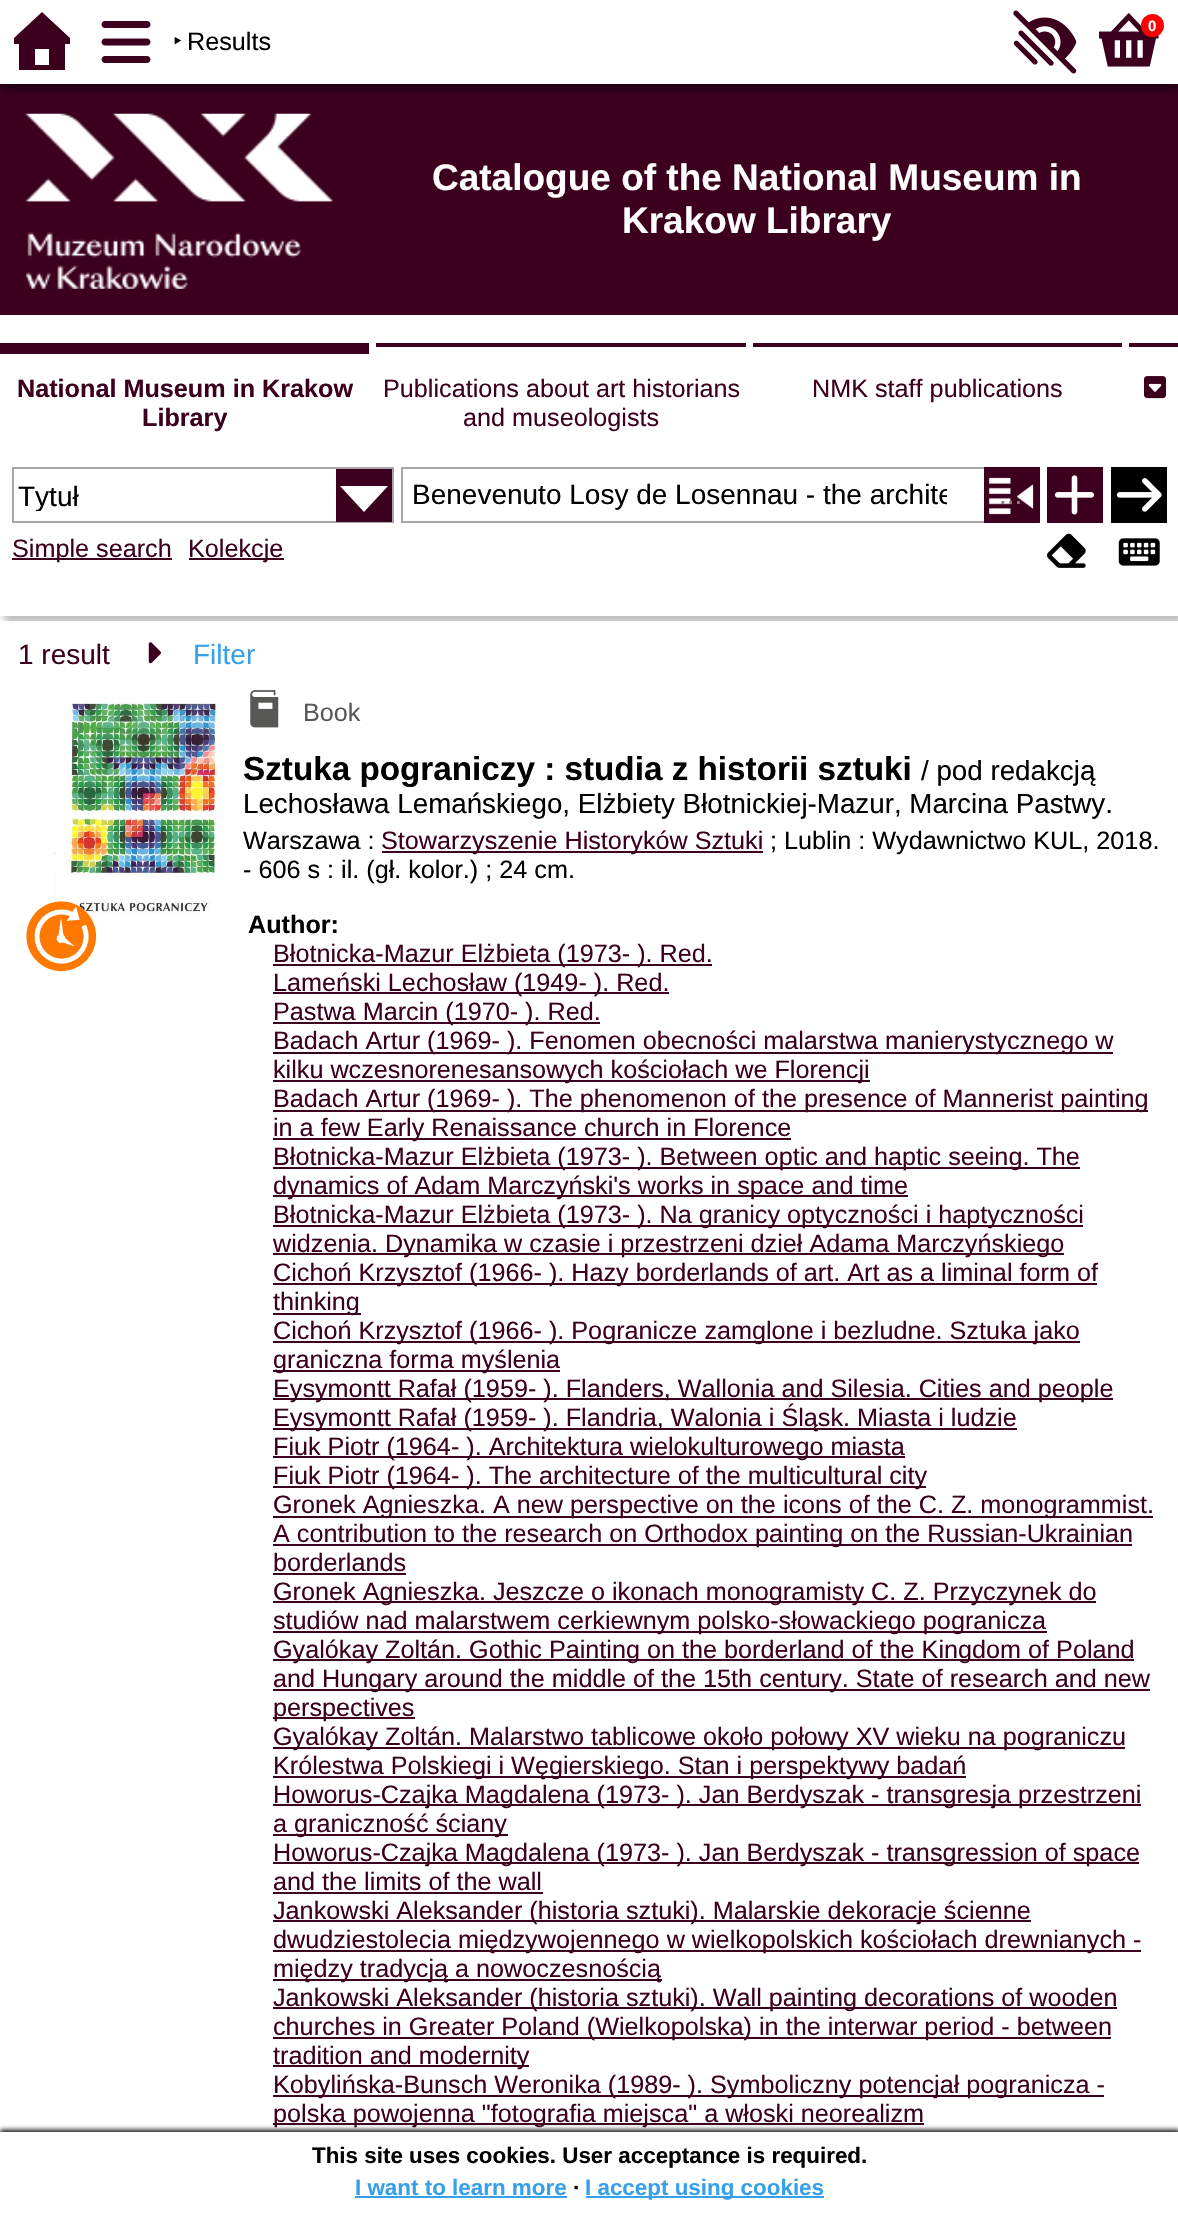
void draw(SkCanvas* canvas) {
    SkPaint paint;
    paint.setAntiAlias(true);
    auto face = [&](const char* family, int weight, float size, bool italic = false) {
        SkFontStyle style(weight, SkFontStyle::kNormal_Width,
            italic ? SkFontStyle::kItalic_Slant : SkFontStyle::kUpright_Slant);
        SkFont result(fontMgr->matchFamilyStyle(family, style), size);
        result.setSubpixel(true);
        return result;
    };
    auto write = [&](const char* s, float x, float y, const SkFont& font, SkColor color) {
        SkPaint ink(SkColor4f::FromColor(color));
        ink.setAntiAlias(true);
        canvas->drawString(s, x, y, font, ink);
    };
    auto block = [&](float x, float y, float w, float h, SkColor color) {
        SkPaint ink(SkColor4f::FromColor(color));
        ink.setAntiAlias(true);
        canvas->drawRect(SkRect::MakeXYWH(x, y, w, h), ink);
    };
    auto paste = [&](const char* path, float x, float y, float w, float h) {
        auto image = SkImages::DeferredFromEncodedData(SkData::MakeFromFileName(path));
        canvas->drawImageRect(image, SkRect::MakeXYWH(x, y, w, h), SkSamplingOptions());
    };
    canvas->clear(SK_ColorWHITE);
    block(0, 84, 1178, 231, SkColorSetRGB(60, 0, 30));
    canvas->save();
    canvas->clipRect(SkRect::MakeXYWH(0, 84, 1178, 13));
    paint.setColor(SkColorSetARGB(166, 0, 0, 0));
    paint.setMaskFilter(SkMaskFilter::MakeBlur(kNormal_SkBlurStyle, 5));
    canvas->drawRect(SkRect::MakeXYWH(0, 4, 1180, 84), paint);
    paint.setMaskFilter(nullptr);
    canvas->restore();
    paste("pic1.png", 1013, 10, 64, 64);
    paste("pic2.png", 1099, 12, 60, 55);
    paint.setColor(SkColorSetRGB(255, 0, 0));
    canvas->drawCircle(1152.5f, 25.5f, 11.5f, paint);
    auto kFont1 = face("Liberation Sans", 700, 15);
    write("0", 1148, 31, kFont1, SK_ColorWHITE);
    paint.setColor(SkColorSetRGB(60, 0, 30));
    canvas->drawPath(SkPathBuilder().moveTo(70, 44).lineTo(65, 44).lineTo(65, 70).lineTo(19, 70).lineTo(19, 44).lineTo(14, 44).lineTo(14, 38).lineTo(42, 12).lineTo(70, 38).close().moveTo(49, 65).lineTo(49, 49).lineTo(35, 49).lineTo(35, 65).close().detach(), paint);
    paste("pic3.png", 101, 21, 50, 42);
    auto kFont2 = face("Noto Sans", 400, 25.2f);
    write("‣", 173, 50, kFont2, SK_ColorBLACK);
    auto kFont3 = face("Liberation Sans", 400, 25.2f);
    write("Results", 187, 50, kFont3, SK_ColorBLACK);
    paste("pic4.png", 26, 113, 307, 176);
    auto kFont4 = face("Liberation Sans", 700, 37);
    write("Catalogue of the National Museum in", 432, 190, kFont4, SK_ColorWHITE);
    write("Krakow Library", 622, 233, kFont4, SK_ColorWHITE);
    canvas->save();
    canvas->clipRect(SkRect::MakeXYWH(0, 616, 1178, 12));
    paint.setColor(SkColorSetARGB(64, 0, 0, 0));
    paint.setMaskFilter(SkMaskFilter::MakeBlur(kNormal_SkBlurStyle, 3.5f));
    canvas->drawRect(SkRect::MakeXYWH(4, 350, 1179, 273), paint);
    paint.setMaskFilter(nullptr);
    canvas->restore();
    block(1129, 343, 49, 4, SkColorSetRGB(60, 0, 30));
    paste("pic5.png", 1144, 376, 22, 23);
    block(0, 343, 369, 11, SkColorSetRGB(60, 0, 30));
    auto kFont5 = face("Liberation Sans", 700, 25.2f);
    write("National Museum in Krakow", 17, 397, kFont5, SkColorSetRGB(60, 0, 30));
    write("Library", 142, 426, kFont5, SkColorSetRGB(60, 0, 30));
    block(376, 343, 370, 4, SkColorSetRGB(60, 0, 30));
    write("Publications about art historians", 383, 397, kFont3, SkColorSetRGB(60, 0, 30));
    write("and museologists", 463, 426, kFont3, SkColorSetRGB(60, 0, 30));
    block(753, 343, 369, 4, SkColorSetRGB(60, 0, 30));
    write("NMK staff publications", 812, 397, kFont3, SkColorSetRGB(60, 0, 30));
    paint.setStyle(SkPaint::kStroke_Style);
    paint.setStrokeWidth(2);
    paint.setColor(SkColorSetRGB(167, 167, 167));
    canvas->drawRect(SkRect::MakeXYWH(13, 468, 380, 54), paint);
    canvas->save();
    canvas->clipRect(SkRect::MakeXYWH(18, 483, 374, 28));
    auto kFont6 = face("Liberation Sans", 400, 28);
    write("Tytuł", 18, 506, kFont6, SK_ColorBLACK);
    canvas->restore();
    block(336, 469, 56, 53, SkColorSetRGB(60, 0, 30));
    paint.setStyle(SkPaint::kFill_Style);
    paint.setColor(SK_ColorWHITE);
    canvas->drawPath(SkPathBuilder().moveTo(388, 486).lineTo(364, 512).lineTo(340, 486).close().detach(), paint);
    paint.setStyle(SkPaint::kStroke_Style);
    paint.setColor(SkColorSetRGB(167, 167, 167));
    canvas->drawRect(SkRect::MakeXYWH(402, 468, 637, 54), paint);
    canvas->save();
    canvas->clipRect(SkRect::MakeXYWH(411, 480, 536, 31));
    write("Benevenuto Losy de Losennau - the archite", 412, 504, kFont6, SK_ColorBLACK);
    canvas->restore();
    block(984, 467, 56, 56, SkColorSetRGB(60, 0, 30));
    paste("pic6.png", 988, 477, 52, 46);
    write("...", 999, 504, kFont6, SkColorSetRGB(150, 118, 134));
    block(1047, 467, 56, 56, SkColorSetRGB(60, 0, 30));
    paste("pic7.png", 1054, 475, 41, 40);
    block(1111, 467, 56, 56, SK_ColorBLACK);
    paste("pic8.png", 1116, 478, 46, 34);
    block(12, 558, 160, 2, SkColorSetRGB(60, 0, 30));
    write("Simple search", 12, 557, kFont3, SkColorSetRGB(60, 0, 30));
    block(189, 558, 95, 2, SkColorSetRGB(60, 0, 30));
    write("Kolekcje", 188, 557, kFont3, SkColorSetRGB(60, 0, 30));
    paste("pic9.png", 1047, 533, 39, 35);
    paste("pic10.png", 1118, 538, 42, 28);
    block(0, 621, 1178, 8, SkColorSetARGB(242, 255, 255, 255));
    write("1 result", 18, 664, kFont6, SkColorSetRGB(60, 0, 30));
    paste("pic11.png", 148, 642, 13, 22);
    write("Filter", 193, 664, kFont6, SkColorSetRGB(54, 160, 236));
    paste("pic12.png", 54, 697, 170, 250);
    paste("pic13.png", 26, 901, 71, 71);
    paste("pic14.png", 250, 690, 29, 38);
    write("Book", 303, 721, kFont3, SkColorSetRGB(87, 87, 86));
    auto kFont7 = face("Liberation Sans", 700, 33.25f);
    write("Sztuka pograniczy : studia z historii sztuki", 243, 780, kFont7, SK_ColorBLACK);
    auto kFont8 = face("Liberation Sans", 400, 27.75f);
    write("/ pod redakcją", 921, 780, kFont8, SK_ColorBLACK);
    write("Lechosława Lemańskiego, Elżbiety Błotnickiej-Mazur, Marcina Pastwy.", 243, 813, kFont8, SK_ColorBLACK);
    write("Warszawa :", 243, 849, kFont3, SK_ColorBLACK);
    block(382, 851, 381, 2, SkColorSetRGB(60, 0, 30));
    write("Stowarzyszenie Historyków Sztuki", 381, 849, kFont3, SkColorSetRGB(60, 0, 30));
    write("; Lublin : Wydawnictwo KUL, 2018.", 770, 849, kFont3, SK_ColorBLACK);
    write("- 606 s : il. (gł. kolor.) ; 24 cm.", 243, 878, kFont3, SK_ColorBLACK);
    write("Author:", 248, 933, kFont5, SK_ColorBLACK);
    block(273, 964, 439, 2, SkColorSetRGB(60, 0, 30));
    write("Błotnicka-Mazur Elżbieta (1973- ). Red.", 273, 962, kFont3, SkColorSetRGB(60, 0, 30));
    block(273, 992, 396, 2, SkColorSetRGB(60, 0, 30));
    write("Lameński Lechosław (1949- ). Red.", 273, 991, kFont3, SkColorSetRGB(60, 0, 30));
    block(273, 1022, 327, 2, SkColorSetRGB(60, 0, 30));
    write("Pastwa Marcin (1970- ). Red.", 273, 1020, kFont3, SkColorSetRGB(60, 0, 30));
    block(273, 1052, 840, 2, SkColorSetRGB(60, 0, 30));
    write("Badach Artur (1969- ). Fenomen obecności malarstwa manierystycznego w", 273, 1049, kFont3, SkColorSetRGB(60, 0, 30));
    block(273, 1080, 597, 2, SkColorSetRGB(60, 0, 30));
    write("kilku wczesnorenesansowych kościołach we Florencji", 273, 1078, kFont3, SkColorSetRGB(60, 0, 30));
    block(273, 1110, 875, 2, SkColorSetRGB(60, 0, 30));
    write("Badach Artur (1969- ). The phenomenon of the presence of Mannerist painting", 273, 1107, kFont3, SkColorSetRGB(60, 0, 30));
    block(273, 1138, 518, 2, SkColorSetRGB(60, 0, 30));
    write("in a few Early Renaissance church in Florence", 273, 1136, kFont3, SkColorSetRGB(60, 0, 30));
    block(273, 1167, 807, 2, SkColorSetRGB(60, 0, 30));
    write("Błotnicka-Mazur Elżbieta (1973- ). Between optic and haptic seeing. The", 273, 1165, kFont3, SkColorSetRGB(60, 0, 30));
    block(273, 1195, 635, 2, SkColorSetRGB(60, 0, 30));
    write("dynamics of Adam Marczyński's works in space and time", 273, 1194, kFont3, SkColorSetRGB(60, 0, 30));
    block(273, 1225, 810, 2, SkColorSetRGB(60, 0, 30));
    write("Błotnicka-Mazur Elżbieta (1973- ). Na granicy optyczności i haptyczności", 273, 1223, kFont3, SkColorSetRGB(60, 0, 30));
    block(273, 1253, 791, 2, SkColorSetRGB(60, 0, 30));
    write("widzenia. Dynamika w czasie i przestrzeni dzieł Adama Marczyńskiego", 273, 1252, kFont3, SkColorSetRGB(60, 0, 30));
    block(273, 1283, 824, 2, SkColorSetRGB(60, 0, 30));
    write("Cichoń Krzysztof (1966- ). Hazy borderlands of art. Art as a liminal form of", 273, 1281, kFont3, SkColorSetRGB(60, 0, 30));
    block(273, 1313, 88, 2, SkColorSetRGB(60, 0, 30));
    write("thinking", 273, 1310, kFont3, SkColorSetRGB(60, 0, 30));
    block(273, 1341, 807, 2, SkColorSetRGB(60, 0, 30));
    write("Cichoń Krzysztof (1966- ). Pogranicze zamglone i bezludne. Sztuka jako", 273, 1339, kFont3, SkColorSetRGB(60, 0, 30));
    block(273, 1370, 287, 2, SkColorSetRGB(60, 0, 30));
    write("graniczna forma myślenia", 273, 1368, kFont3, SkColorSetRGB(60, 0, 30));
    block(273, 1398, 840, 2, SkColorSetRGB(60, 0, 30));
    write("Eysymontt Rafał (1959- ). Flanders, Wallonia and Silesia. Cities and people", 273, 1397, kFont3, SkColorSetRGB(60, 0, 30));
    block(273, 1428, 744, 2, SkColorSetRGB(60, 0, 30));
    write("Eysymontt Rafał (1959- ). Flandria, Walonia i Śląsk. Miasta i ludzie", 273, 1426, kFont3, SkColorSetRGB(60, 0, 30));
    block(273, 1456, 632, 2, SkColorSetRGB(60, 0, 30));
    write("Fiuk Piotr (1964- ). Architektura wielokulturowego miasta", 273, 1455, kFont3, SkColorSetRGB(60, 0, 30));
    block(273, 1486, 653, 2, SkColorSetRGB(60, 0, 30));
    write("Fiuk Piotr (1964- ). The architecture of the multicultural city", 273, 1484, kFont3, SkColorSetRGB(60, 0, 30));
    block(273, 1516, 880, 2, SkColorSetRGB(60, 0, 30));
    write("Gronek Agnieszka. A new perspective on the icons of the C. Z. monogrammist.", 273, 1513, kFont3, SkColorSetRGB(60, 0, 30));
    block(273, 1544, 859, 2, SkColorSetRGB(60, 0, 30));
    write("A contribution to the research on Orthodox painting on the Russian-Ukrainian", 273, 1542, kFont3, SkColorSetRGB(60, 0, 30));
    write("borderlands", 273, 1571, kFont3, SkColorSetRGB(60, 0, 30));
    block(273, 1573, 133, 2, SkColorSetRGB(60, 0, 30));
    block(273, 1601, 823, 2, SkColorSetRGB(60, 0, 30));
    write("Gronek Agnieszka. Jeszcze o ikonach monogramisty C. Z. Przyczynek do", 273, 1600, kFont3, SkColorSetRGB(60, 0, 30));
    block(273, 1631, 774, 2, SkColorSetRGB(60, 0, 30));
    write("studiów nad malarstwem cerkiewnym polsko-słowackiego pogranicza", 273, 1629, kFont3, SkColorSetRGB(60, 0, 30));
    block(273, 1659, 861, 2, SkColorSetRGB(60, 0, 30));
    write("Gyalókay Zoltán. Gothic Painting on the borderland of the Kingdom of Poland", 273, 1658, kFont3, SkColorSetRGB(60, 0, 30));
    block(273, 1689, 877, 2, SkColorSetRGB(60, 0, 30));
    write("and Hungary around the middle of the 15th century. State of research and new", 273, 1687, kFont3, SkColorSetRGB(60, 0, 30));
    block(273, 1717, 142, 2, SkColorSetRGB(60, 0, 30));
    write("perspectives", 273, 1716, kFont3, SkColorSetRGB(60, 0, 30));
    block(273, 1747, 852, 2, SkColorSetRGB(60, 0, 30));
    write("Gyalókay Zoltán. Malarstwo tablicowe około połowy XV wieku na pograniczu", 273, 1745, kFont3, SkColorSetRGB(60, 0, 30));
    block(273, 1776, 693, 2, SkColorSetRGB(60, 0, 30));
    write("Królestwa Polskiegi i Węgierskiego. Stan i perspektywy badań", 273, 1774, kFont3, SkColorSetRGB(60, 0, 30));
    block(273, 1804, 868, 2, SkColorSetRGB(60, 0, 30));
    write("Howorus-Czajka Magdalena (1973- ). Jan Berdyszak - transgresja przestrzeni", 273, 1803, kFont3, SkColorSetRGB(60, 0, 30));
    block(273, 1834, 235, 2, SkColorSetRGB(60, 0, 30));
    write("a graniczność ściany", 273, 1832, kFont3, SkColorSetRGB(60, 0, 30));
    block(273, 1862, 866, 2, SkColorSetRGB(60, 0, 30));
    write("Howorus-Czajka Magdalena (1973- ). Jan Berdyszak - transgression of space", 273, 1861, kFont3, SkColorSetRGB(60, 0, 30));
    write("and the limits of the wall", 273, 1890, kFont3, SkColorSetRGB(60, 0, 30));
    block(273, 1892, 270, 2, SkColorSetRGB(60, 0, 30));
    block(273, 1920, 758, 2, SkColorSetRGB(60, 0, 30));
    write("Jankowski Aleksander (historia sztuki). Malarskie dekoracje ścienne", 273, 1919, kFont3, SkColorSetRGB(60, 0, 30));
    block(273, 1950, 868, 2, SkColorSetRGB(60, 0, 30));
    write("dwudziestolecia międzywojennego w wielkopolskich kościołach drewnianych -", 273, 1948, kFont3, SkColorSetRGB(60, 0, 30));
    block(273, 1979, 389, 2, SkColorSetRGB(60, 0, 30));
    write("między tradycją a nowoczesnością", 273, 1977, kFont3, SkColorSetRGB(60, 0, 30));
    block(273, 2007, 844, 2, SkColorSetRGB(60, 0, 30));
    write("Jankowski Aleksander (historia sztuki). Wall painting decorations of wooden", 273, 2006, kFont3, SkColorSetRGB(60, 0, 30));
    block(273, 2037, 838, 2, SkColorSetRGB(60, 0, 30));
    write("churches in Greater Poland (Wielkopolska) in the interwar period - between", 273, 2035, kFont3, SkColorSetRGB(60, 0, 30));
    block(273, 2065, 256, 2, SkColorSetRGB(60, 0, 30));
    write("tradition and modernity", 273, 2064, kFont3, SkColorSetRGB(60, 0, 30));
    block(273, 2095, 831, 2, SkColorSetRGB(60, 0, 30));
    write("Kobylińska-Bunsch Weronika (1989- ). Symboliczny potencjał pogranicza -", 273, 2093, kFont3, SkColorSetRGB(60, 0, 30));
    block(273, 2123, 651, 2, SkColorSetRGB(60, 0, 30));
    write("polska powojenna \"fotografia miejsca\" a włoski neorealizm", 273, 2122, kFont3, SkColorSetRGB(60, 0, 30));
    paint.setStyle(SkPaint::kFill_Style);
    paint.setColor(SK_ColorBLACK);
    paint.setMaskFilter(SkMaskFilter::MakeBlur(kNormal_SkBlurStyle, 2.5f));
    canvas->drawRect(SkRect::MakeXYWH(0, 2130, 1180, 86), paint);
    paint.setMaskFilter(nullptr);
    block(0, 2132, 1178, 84, SK_ColorWHITE);
    auto kFont9 = face("Liberation Sans", 700, 22.4f);
    write("This site uses cookies. User acceptance is required.", 312, 2163, kFont9, SK_ColorBLACK);
    write("I want to learn more", 355, 2195, kFont9, SkColorSetRGB(54, 160, 236));
    block(355, 2196, 212, 2, SkColorSetRGB(54, 160, 236));
    write("∙", 573, 2195, kFont9, SK_ColorBLACK);
    block(586, 2196, 238, 2, SkColorSetRGB(54, 160, 236));
    write("I accept using cookies", 585, 2195, kFont9, SkColorSetRGB(54, 160, 236));
}
